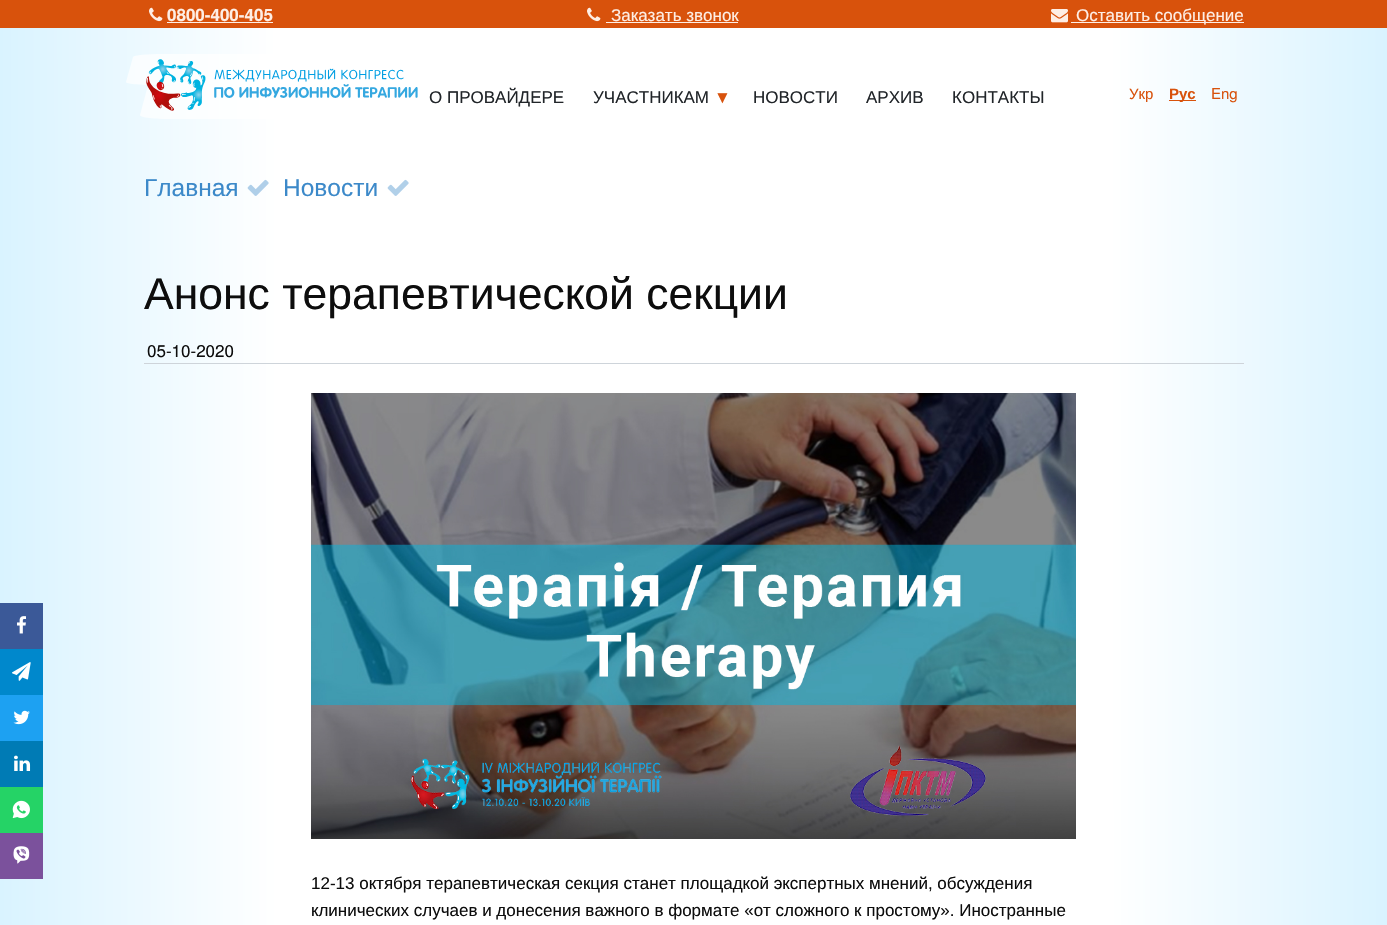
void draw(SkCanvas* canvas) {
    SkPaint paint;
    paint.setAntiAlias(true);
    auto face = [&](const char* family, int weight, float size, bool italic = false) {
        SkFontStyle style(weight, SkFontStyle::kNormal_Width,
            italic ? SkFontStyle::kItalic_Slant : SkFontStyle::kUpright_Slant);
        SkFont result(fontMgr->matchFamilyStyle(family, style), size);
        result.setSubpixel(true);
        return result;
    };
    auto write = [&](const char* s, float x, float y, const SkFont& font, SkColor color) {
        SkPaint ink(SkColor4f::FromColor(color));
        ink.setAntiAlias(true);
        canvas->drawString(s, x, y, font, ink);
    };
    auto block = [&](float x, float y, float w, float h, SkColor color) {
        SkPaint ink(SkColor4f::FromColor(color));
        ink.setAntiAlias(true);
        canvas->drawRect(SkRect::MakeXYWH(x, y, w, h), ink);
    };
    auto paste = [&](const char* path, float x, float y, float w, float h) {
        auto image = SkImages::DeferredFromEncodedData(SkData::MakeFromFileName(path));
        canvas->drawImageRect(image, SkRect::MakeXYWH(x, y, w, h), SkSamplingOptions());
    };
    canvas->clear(SK_ColorWHITE);
    {
        const SkColor colors[] = {SkColorSetRGB(217, 243, 255), SK_ColorWHITE, SK_ColorWHITE, SkColorSetRGB(217, 243, 255)};
        const float stops[] = {0, 0.2f, 0.8f, 1};
        const SkPoint ends[] = {{0, 463}, {1387, 462}};
        paint.setShader(SkGradientShader::MakeLinear(ends, colors, stops, 4, SkTileMode::kClamp));
        paint.setAlpha(255);
    }
    canvas->drawRect(SkRect::MakeXYWH(0, 28, 1387, 897), paint);
    block(0, 0, 1387, 28, SkColorSetRGB(216, 82, 12));
    paste("pic1.png", 149, 7, 14, 15);
    auto kFont1 = face("TeX Gyre Heros", 700, 17);
    write("0800-400-405", 167, 21, kFont1, SkColorSetRGB(254, 238, 229));
    block(167, 22, 106, 1, SkColorSetRGB(254, 238, 229));
    paste("pic1.png", 587, 7, 14, 15);
    auto kFont2 = face("Liberation Sans", 400, 17);
    write("Заказать звонок", 611, 21, kFont2, SkColorSetRGB(254, 238, 229));
    block(606, 22, 132, 1, SkColorSetRGB(254, 238, 229));
    paste("pic2.png", 1051, 9, 17, 14);
    block(1071, 22, 173, 1, SkColorSetRGB(254, 238, 229));
    write("Оставить сообщение", 1076, 21, kFont2, SkColorSetRGB(254, 238, 229));
    paint.setShader(nullptr);
    paint.setColor(SkColorSetARGB(179, 255, 255, 255));
    canvas->drawPath(SkPathBuilder().moveTo(163, 54).lineTo(398, 54).cubicTo(414, 54, 427, 55, 426, 57).lineTo(420, 82).cubicTo(419, 84, 406, 85, 390, 85).lineTo(155, 85).cubicTo(139, 85, 126, 84, 126, 82).lineTo(133, 57).cubicTo(134, 55, 147, 54, 163, 54).close().detach(), paint);
    canvas->drawPath(SkPathBuilder().moveTo(177, 85).lineTo(407, 85).cubicTo(423, 85, 435, 87, 435, 89).lineTo(428, 115).cubicTo(427, 117, 414, 119, 398, 119).lineTo(168, 119).cubicTo(152, 119, 139, 117, 140, 115).lineTo(147, 89).cubicTo(148, 87, 161, 85, 177, 85).close().detach(), paint);
    paste("pic3.png", 146, 59, 272, 52);
    write("О ПРОВАЙДЕРЕ", 429, 103, kFont2, SkColorSetRGB(33, 37, 41));
    write("УЧАСТНИКАМ", 593, 103, kFont2, SkColorSetRGB(33, 37, 41));
    write("▼", 714, 103, kFont2, SkColorSetRGB(216, 82, 12));
    write("НОВОСТИ", 753, 103, kFont2, SkColorSetRGB(33, 37, 41));
    write("АРХИВ", 866, 103, kFont2, SkColorSetRGB(33, 37, 41));
    write("КОНТАКТЫ", 952, 103, kFont2, SkColorSetRGB(33, 37, 41));
    auto kFont3 = face("Liberation Sans", 400, 15);
    write("Укр", 1129, 99, kFont3, SkColorSetRGB(216, 82, 12));
    block(1169, 100, 27, 1, SkColorSetRGB(216, 82, 12));
    auto kFont4 = face("Liberation Sans", 700, 15);
    write("Рус", 1169, 99, kFont4, SkColorSetRGB(216, 82, 12));
    auto kFont5 = face("TeX Gyre Heros", 400, 15);
    write("Eng", 1211, 99, kFont5, SkColorSetRGB(216, 82, 12));
    auto kFont6 = face("Liberation Sans", 400, 24.5f);
    write("Главная", 144, 196, kFont6, SkColorSetRGB(60, 137, 201));
    paste("pic4.png", 247, 179, 22, 17);
    write("Новости", 283, 196, kFont6, SkColorSetRGB(60, 137, 201));
    paste("pic5.png", 387, 179, 22, 17);
    block(0, 603, 43, 46, SkColorSetRGB(59, 89, 152));
    paste("pic6.png", 17, 616, 9, 18);
    block(0, 649, 43, 46, SkColorSetRGB(0, 136, 204));
    paste("pic7.png", 12, 662, 19, 19);
    block(0, 695, 43, 46, SkColorSetRGB(29, 161, 242));
    paste("pic8.png", 13, 710, 17, 15);
    block(0, 741, 43, 46, SkColorSetRGB(0, 123, 181));
    paste("pic9.png", 14, 755, 17, 16);
    block(0, 787, 43, 46, SkColorSetRGB(37, 211, 102));
    paste("pic10.png", 12, 800, 18, 19);
    block(0, 833, 43, 46, SkColorSetRGB(123, 81, 156));
    paste("pic11.png", 13, 846, 17, 18);
    auto kFont7 = face("Liberation Sans", 400, 44.5f);
    write("Анонс терапевтической секции", 144, 309, kFont7, SkColorSetRGB(13, 13, 13));
    block(144, 363, 1100, 1, SkColorSetRGB(206, 212, 218));
    auto kFont8 = face("TeX Gyre Heros", 400, 17);
    write("05-10-2020", 147, 357, kFont8, SkColorSetRGB(13, 13, 13));
    paste("pic12.png", 311, 393, 765, 446);
    write("12-13 октября терапевтическая секция станет площадкой экспертных мнений, обсуждения", 311, 889, kFont2, SkColorSetRGB(13, 13, 13));
    write("клинических случаев и донесения важного в формате «от сложного к простому». Иностранные", 311, 916, kFont2, SkColorSetRGB(13, 13, 13));
}
